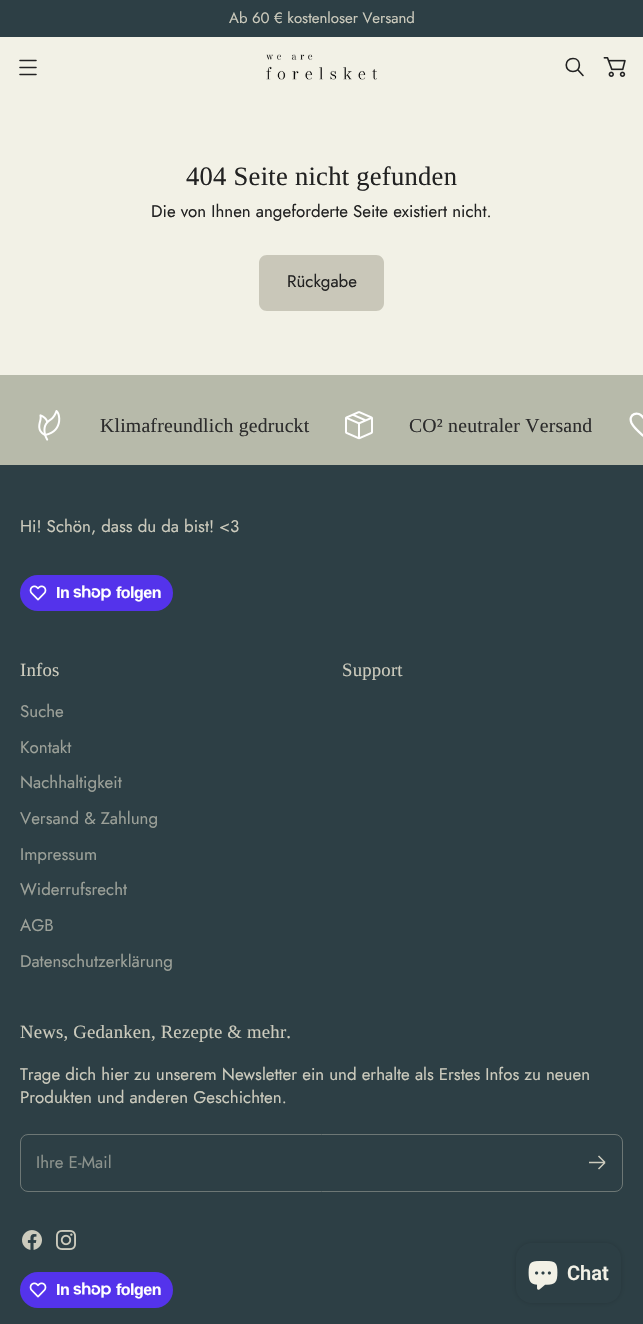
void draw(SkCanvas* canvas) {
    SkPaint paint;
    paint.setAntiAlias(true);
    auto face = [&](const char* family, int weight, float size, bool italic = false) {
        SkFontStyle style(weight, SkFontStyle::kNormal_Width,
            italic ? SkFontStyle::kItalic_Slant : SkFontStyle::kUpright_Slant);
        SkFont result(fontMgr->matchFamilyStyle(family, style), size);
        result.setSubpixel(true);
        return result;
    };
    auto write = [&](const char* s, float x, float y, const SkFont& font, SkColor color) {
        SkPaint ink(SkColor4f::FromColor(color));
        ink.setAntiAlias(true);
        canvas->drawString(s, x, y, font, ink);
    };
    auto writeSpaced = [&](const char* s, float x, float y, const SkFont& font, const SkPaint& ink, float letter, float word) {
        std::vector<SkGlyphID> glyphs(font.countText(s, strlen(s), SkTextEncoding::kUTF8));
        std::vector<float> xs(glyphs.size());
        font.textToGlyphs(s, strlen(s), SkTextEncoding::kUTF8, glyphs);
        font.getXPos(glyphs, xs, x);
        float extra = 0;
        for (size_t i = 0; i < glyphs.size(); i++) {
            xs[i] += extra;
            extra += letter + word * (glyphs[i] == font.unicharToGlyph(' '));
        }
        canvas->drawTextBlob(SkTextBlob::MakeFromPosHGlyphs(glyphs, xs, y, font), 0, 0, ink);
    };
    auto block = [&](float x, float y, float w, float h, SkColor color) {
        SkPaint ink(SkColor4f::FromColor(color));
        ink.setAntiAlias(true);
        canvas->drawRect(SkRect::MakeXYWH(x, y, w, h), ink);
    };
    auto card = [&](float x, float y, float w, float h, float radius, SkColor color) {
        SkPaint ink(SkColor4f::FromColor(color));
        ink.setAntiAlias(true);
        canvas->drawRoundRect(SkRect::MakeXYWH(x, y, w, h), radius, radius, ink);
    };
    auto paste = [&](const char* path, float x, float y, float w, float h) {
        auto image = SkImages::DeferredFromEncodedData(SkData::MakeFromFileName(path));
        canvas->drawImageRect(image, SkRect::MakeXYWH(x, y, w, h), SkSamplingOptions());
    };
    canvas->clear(SkColorSetRGB(242, 241, 230));
    block(0, 0, 643, 37, SkColorSetRGB(45, 63, 69));
    auto kFont1 = face("Jost", 400, 15);
    write("Ab 60 € kostenloser Versand", 229, 23, kFont1, SkColorSetRGB(204, 203, 189));
    paint.setStyle(SkPaint::kStroke_Style);
    paint.setStrokeWidth(1.6f);
    paint.setStrokeCap(SkPaint::kRound_Cap);
    paint.setStrokeJoin(SkPaint::kRound_Join);
    paint.setColor(SkColorSetRGB(34, 34, 34));
    canvas->drawPath(SkPathBuilder().moveTo(20, 67.5f).lineTo(36, 67.5f).moveTo(20, 74.5f).lineTo(36, 74.5f).moveTo(20, 60.5f).lineTo(36, 60.5f).detach(), paint);
    paste("pic1.png", 266, 54, 111, 26);
    canvas->drawPath(SkPathBuilder().moveTo(573, 71.5f).cubicTo(581.5f, 71.5f, 581.5f, 58.5f, 573, 58.5f).cubicTo(564, 58.5f, 564, 71.5f, 573, 71.5f).close().moveTo(578, 70).lineTo(583, 75.5f).detach(), paint);
    paste("pic2.png", 603, 57, 23, 20);
    auto kFont2 = face("Liberation Serif", 400, 26.6f);
    paint.setStyle(SkPaint::kFill_Style);
    writeSpaced("404 Seite nicht gefunden", 186, 185, kFont2, paint, 0.25f, 0);
    auto kFont3 = face("Jost", 400, 16.9f);
    write("Die von Ihnen angeforderte Seite existiert nicht.", 151, 217, kFont3, SkColorSetRGB(34, 34, 34));
    canvas->save();
    canvas->clipPath(SkPathBuilder().moveTo(267, 255).lineTo(376, 255).cubicTo(380.5f, 255, 384, 258.5f, 384, 263).lineTo(384, 303).cubicTo(384, 307.5f, 380.5f, 311, 376, 311).lineTo(267, 311).cubicTo(262.5f, 311, 259, 307.5f, 259, 303).lineTo(259, 263).cubicTo(259, 258.5f, 262.5f, 255, 267, 255).close().detach(), true);
    card(258, 254, 127, 58, 8, SkColorSetRGB(201, 199, 185));
    canvas->restore();
    write("Rückgabe", 287, 287, kFont3, SkColorSetRGB(34, 34, 34));
    block(0, 375, 643, 90, SkColorSetRGB(183, 186, 170));
    paste("pic3.png", 38, 410, 23, 31);
    auto kFont4 = face("Liberation Serif", 400, 19.75f);
    paint.setColor(SkColorSetRGB(44, 44, 44));
    writeSpaced("Klimafreundlich gedruckt", 100, 432, kFont4, paint, 0.2f, 0);
    paste("pic4.png", 345, 411, 28, 29);
    writeSpaced("CO² neutraler Versand", 409, 432, kFont4, paint, 0.2f, 0);
    paint.setStyle(SkPaint::kStroke_Style);
    paint.setStrokeWidth(2.3f);
    paint.setColor(SK_ColorWHITE);
    canvas->drawPath(SkPathBuilder().moveTo(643.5f, 436).cubicTo(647.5f, 432, 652.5f, 428, 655, 423).cubicTo(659.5f, 414, 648.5f, 410, 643.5f, 418).cubicTo(638.5f, 410, 627.5f, 414, 631.5f, 423).cubicTo(634, 428, 639, 432, 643.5f, 436).close().detach(), paint);
    block(0, 465, 643, 859, SkColorSetRGB(45, 63, 69));
    write("Hi! Schön, dass du da bist! <3", 20, 532, kFont3, SkColorSetRGB(204, 203, 189));
    card(20, 575, 153, 36, 18, SkColorSetRGB(84, 51, 235));
    paste("pic5.png", 29, 585, 18, 16);
    auto kFont5 = face("Liberation Sans", 700, 16);
    paint.setStyle(SkPaint::kFill_Style);
    writeSpaced("In", 56, 598, kFont5, paint, -0.5f, 0);
    paste("pic6.png", 73, 585, 38, 16);
    writeSpaced("folgen", 116, 598, kFont5, paint, -0.5f, 0);
    auto kFont6 = face("Liberation Serif", 400, 18.75f);
    paint.setColor(SkColorSetRGB(204, 203, 189));
    writeSpaced("Infos", 20, 676, kFont6, paint, 0.2f, 0);
    write("Suche", 20, 717, kFont3, SkColorSetRGB(156, 161, 153));
    write("Kontakt", 20, 753, kFont3, SkColorSetRGB(156, 161, 153));
    write("Nachhaltigkeit", 20, 788, kFont3, SkColorSetRGB(156, 161, 153));
    write("Versand & Zahlung", 20, 824, kFont3, SkColorSetRGB(156, 161, 153));
    write("Impressum", 20, 860, kFont3, SkColorSetRGB(156, 161, 153));
    write("Widerrufsrecht", 20, 895, kFont3, SkColorSetRGB(156, 161, 153));
    write("AGB", 20, 931, kFont3, SkColorSetRGB(156, 161, 153));
    write("Datenschutzerklärung", 20, 967, kFont3, SkColorSetRGB(156, 161, 153));
    writeSpaced("Support", 342, 676, kFont6, paint, 0.2f, 0);
    writeSpaced("News, Gedanken, Rezepte & mehr.", 20, 1038, kFont6, paint, 0.2f, 0);
    write("Trage dich hier zu unserem Newsletter ein und erhalte als Erstes Infos zu neuen", 20, 1080, kFont3, SkColorSetRGB(204, 203, 189));
    write("Produkten und anderen Geschichten.", 20, 1103, kFont3, SkColorSetRGB(204, 203, 189));
    paint.setStyle(SkPaint::kStroke_Style);
    paint.setStrokeWidth(1);
    paint.setStrokeCap(SkPaint::kButt_Cap);
    paint.setStrokeJoin(SkPaint::kMiter_Join);
    paint.setColor(SkColorSetRGB(109, 119, 117));
    canvas->drawRoundRect(SkRect::MakeXYWH(20.5f, 1134.5f, 602, 57), 7.5f, 7.5f, paint);
    write("Ihre E-Mail", 36, 1168, kFont3, SkColorSetRGB(140, 147, 141));
    paint.setStrokeWidth(1.5f);
    paint.setColor(SkColorSetRGB(204, 203, 189));
    canvas->drawPath(SkPathBuilder().moveTo(589, 1162.5f).lineTo(605, 1162.5f).moveTo(605, 1162.5f).lineTo(598.5f, 1156).moveTo(605, 1162.5f).lineTo(598.5f, 1169).detach(), paint);
    paste("pic7.png", 22, 1230, 20, 20);
    paste("pic8.png", 56, 1230, 20, 20);
    card(20, 1272, 153, 36, 18, SkColorSetRGB(84, 51, 235));
    paste("pic5.png", 29, 1282, 18, 16);
    paint.setStyle(SkPaint::kFill_Style);
    paint.setColor(SK_ColorWHITE);
    writeSpaced("In", 56, 1295, kFont5, paint, -0.5f, 0);
    paste("pic6.png", 73, 1282, 38, 16);
    writeSpaced("folgen", 116, 1295, kFont5, paint, -0.5f, 0);
    paint.setColor(SkColorSetARGB(38, 0, 0, 0));
    paint.setMaskFilter(SkMaskFilter::MakeBlur(kNormal_SkBlurStyle, 2.5f));
    canvas->drawRoundRect(SkRect::MakeXYWH(516, 1243, 105, 60), 16, 16, paint);
    paint.setMaskFilter(nullptr);
    card(516, 1243, 105, 60, 16, SkColorSetRGB(45, 63, 69));
    paste("pic9.png", 528, 1261, 30, 29);
    auto kFont7 = face("Roboto", 600, 20);
    write("Chat", 567, 1280, kFont7, SkColorSetRGB(242, 241, 230));
}
